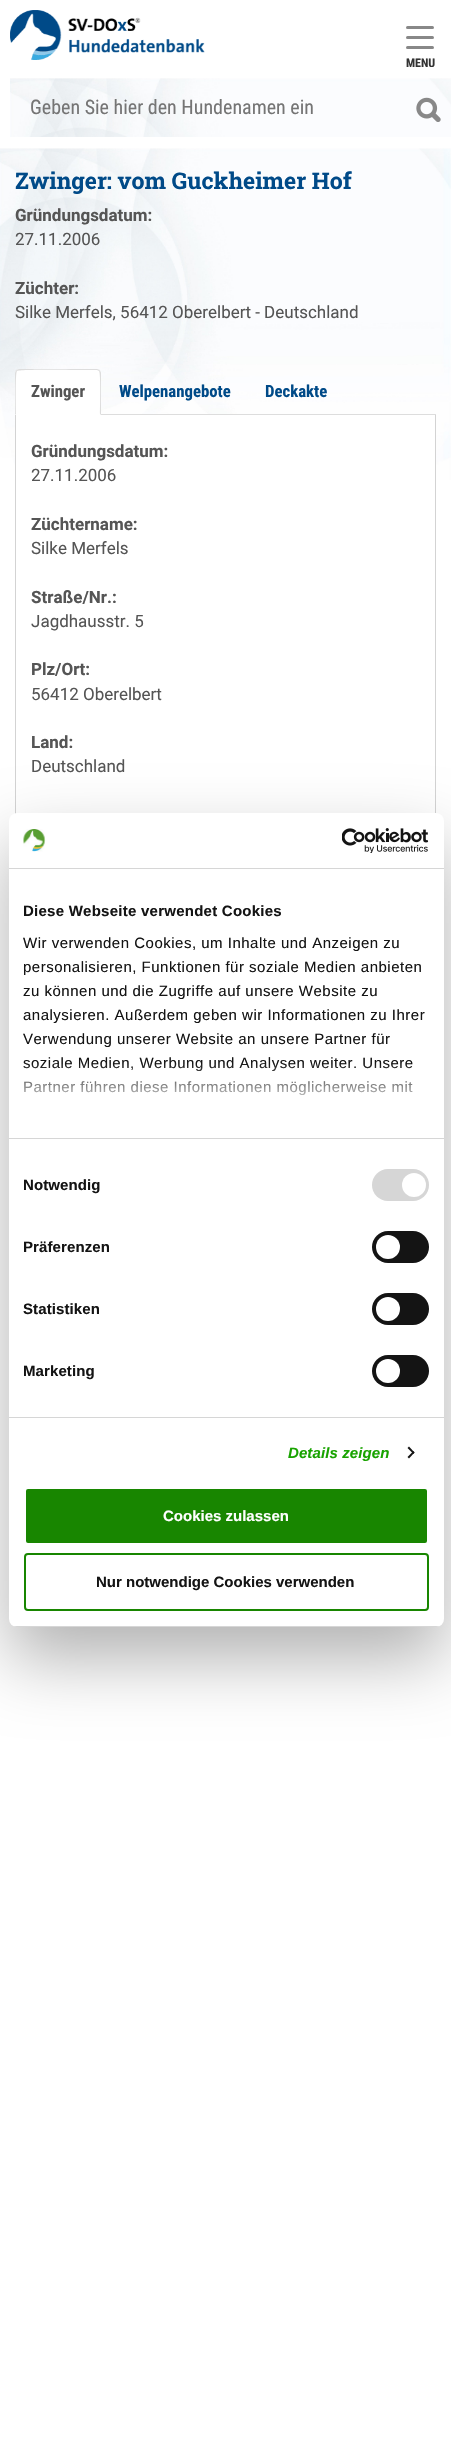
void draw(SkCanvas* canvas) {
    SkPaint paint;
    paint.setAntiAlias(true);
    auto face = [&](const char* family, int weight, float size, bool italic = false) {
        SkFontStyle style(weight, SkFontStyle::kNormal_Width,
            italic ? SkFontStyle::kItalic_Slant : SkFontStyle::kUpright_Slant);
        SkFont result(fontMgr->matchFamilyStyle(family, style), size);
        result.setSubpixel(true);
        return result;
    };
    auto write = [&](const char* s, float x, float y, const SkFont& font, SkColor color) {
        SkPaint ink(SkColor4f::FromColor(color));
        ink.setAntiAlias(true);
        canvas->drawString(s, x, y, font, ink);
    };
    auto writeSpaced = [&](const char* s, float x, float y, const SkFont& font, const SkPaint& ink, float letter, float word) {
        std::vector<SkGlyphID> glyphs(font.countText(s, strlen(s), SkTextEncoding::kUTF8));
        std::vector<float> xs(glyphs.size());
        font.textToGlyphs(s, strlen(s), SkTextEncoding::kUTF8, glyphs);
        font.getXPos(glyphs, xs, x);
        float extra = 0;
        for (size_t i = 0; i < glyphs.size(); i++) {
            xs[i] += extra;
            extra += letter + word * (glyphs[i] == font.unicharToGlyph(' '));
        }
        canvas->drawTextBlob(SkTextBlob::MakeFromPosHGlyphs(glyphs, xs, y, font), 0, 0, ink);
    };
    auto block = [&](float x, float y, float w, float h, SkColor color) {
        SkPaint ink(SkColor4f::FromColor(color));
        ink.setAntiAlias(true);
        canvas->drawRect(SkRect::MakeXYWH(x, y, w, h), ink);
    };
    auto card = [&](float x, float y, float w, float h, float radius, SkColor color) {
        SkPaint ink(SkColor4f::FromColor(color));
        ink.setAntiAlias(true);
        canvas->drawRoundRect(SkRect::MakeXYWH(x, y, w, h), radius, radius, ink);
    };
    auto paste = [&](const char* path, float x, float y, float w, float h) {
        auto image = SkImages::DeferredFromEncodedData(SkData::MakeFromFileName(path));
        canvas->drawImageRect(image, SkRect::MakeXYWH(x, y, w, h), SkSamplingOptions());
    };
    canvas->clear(SK_ColorWHITE);
    paste("pic1.png", 10, 10, 195, 50);
    card(406, 26, 28, 3, 1.5f, SkColorSetRGB(136, 136, 136));
    card(406, 36, 28, 3, 1.5f, SkColorSetRGB(136, 136, 136));
    card(406, 46, 28, 3, 1.5f, SkColorSetRGB(136, 136, 136));
    auto kFont1 = face("Roboto Condensed", 700, 12);
    write("MENU", 406, 67, kFont1, SkColorSetRGB(51, 51, 51));
    paste("pic2.png", 10, 78, 441, 59);
    auto kFont2 = face("Roboto Condensed", 400, 20);
    write("Geben Sie hier den Hundenamen ein", 30, 114, kFont2, SkColorSetRGB(117, 117, 117));
    paste("pic3.png", 416, 97, 25, 25);
    paste("pic4.png", 0, 148, 451, 332);
    auto kFont3 = face("Roboto Slab", 700, 23);
    write("Zwinger: vom Guckheimer Hof", 15, 189, kFont3, SkColorSetRGB(0, 74, 136));
    auto kFont4 = face("Roboto", 700, 17);
    write("Gründungsdatum:", 15, 221, kFont4, SkColorSetRGB(85, 85, 85));
    auto kFont5 = face("Roboto", 400, 17);
    write("27.11.2006", 15, 245, kFont5, SkColorSetRGB(85, 85, 85));
    write("Züchter:", 15, 294, kFont4, SkColorSetRGB(85, 85, 85));
    write("Silke Merfels, 56412 Oberelbert - Deutschland", 15, 318, kFont5, SkColorSetRGB(85, 85, 85));
    block(101, 414, 335, 1, SkColorSetRGB(221, 221, 221));
    paint.setColor(SK_ColorWHITE);
    canvas->drawPath(SkPathBuilder().moveTo(19, 369).lineTo(97, 369).cubicTo(99, 369, 101, 371, 101, 373).lineTo(101, 415).lineTo(15, 415).lineTo(15, 373).cubicTo(15, 371, 17, 369, 19, 369).close().detach(), paint);
    paint.setColor(SkColorSetRGB(221, 221, 221));
    canvas->drawPath(SkPathBuilder().moveTo(19, 369).lineTo(16, 370).lineTo(17, 371).cubicTo(19, 369, 77, 370, 84, 370).lineTo(97, 370).lineTo(99, 371).lineTo(100, 370).lineTo(97, 369).close().detach(), paint);
    canvas->drawPath(SkPathBuilder().moveTo(101, 415).lineTo(101, 373).cubicTo(101, 372, 100, 371, 100, 370).lineTo(99, 371).cubicTo(101, 373, 100, 409, 100, 414).close().detach(), paint);
    canvas->drawPath(SkPathBuilder().moveTo(15, 415).lineTo(16, 414).cubicTo(16, 409, 15, 373, 17, 371).lineTo(16, 370).lineTo(15, 373).close().detach(), paint);
    auto kFont6 = face("Roboto Condensed", 700, 16.75f);
    write("Zwinger", 31, 397, kFont6, SkColorSetRGB(85, 85, 85));
    write("Welpenangebote", 119, 397, kFont6, SkColorSetRGB(0, 74, 136));
    write("Deckakte", 265, 397, kFont6, SkColorSetRGB(0, 74, 136));
    block(16, 415, 419, 65, SK_ColorWHITE);
    block(435, 415, 1, 398, SkColorSetRGB(211, 211, 211));
    block(15, 415, 1, 399, SkColorSetRGB(211, 211, 211));
    write("Gründungsdatum:", 31, 457, kFont4, SkColorSetRGB(85, 85, 85));
    write("27.11.2006", 31, 481, kFont5, SkColorSetRGB(85, 85, 85));
    write("Züchtername:", 31, 530, kFont4, SkColorSetRGB(85, 85, 85));
    write("Silke Merfels", 31, 554, kFont5, SkColorSetRGB(85, 85, 85));
    write("Straße/Nr.:", 31, 603, kFont4, SkColorSetRGB(85, 85, 85));
    write("Jagdhausstr. 5", 31, 627, kFont5, SkColorSetRGB(85, 85, 85));
    write("Plz/Ort:", 31, 675, kFont4, SkColorSetRGB(85, 85, 85));
    write("56412 Oberelbert", 31, 700, kFont5, SkColorSetRGB(85, 85, 85));
    write("Land:", 31, 748, kFont4, SkColorSetRGB(85, 85, 85));
    write("Deutschland", 31, 772, kFont5, SkColorSetRGB(85, 85, 85));
    paint.setColor(SkColorSetARGB(77, 0, 0, 0));
    paint.setMaskFilter(SkMaskFilter::MakeBlur(kNormal_SkBlurStyle, 34));
    canvas->drawRoundRect(SkRect::MakeXYWH(9, 845, 435, 814), 8, 8, paint);
    paint.setMaskFilter(nullptr);
    card(9, 813, 435, 814, 8, SK_ColorWHITE);
    block(9, 868, 435, 1, SkColorSetRGB(214, 214, 214));
    paste("pic5.png", 23, 829, 23, 23);
    paste("pic6.png", 342, 828, 87, 25);
    block(9, 1138, 435, 1, SkColorSetRGB(214, 214, 214));
    auto kFont7 = face("Liberation Sans", 700, 15);
    paint.setColor(SkColorSetRGB(20, 20, 20));
    writeSpaced("Diese Webseite verwendet Cookies", 23, 916, kFont7, paint, 0.25f, 0);
    auto kFont8 = face("Liberation Sans", 400, 15);
    writeSpaced("Wir verwenden Cookies, um Inhalte und Anzeigen zu", 23, 948, kFont8, paint, 0.5f, 0);
    writeSpaced("personalisieren, Funktionen für soziale Medien anbieten", 23, 972, kFont8, paint, 0.5f, 0);
    writeSpaced("zu können und die Zugriffe auf unsere Website zu", 23, 996, kFont8, paint, 0.5f, 0);
    writeSpaced("analysieren. Außerdem geben wir Informationen zu Ihrer", 23, 1020, kFont8, paint, 0.5f, 0);
    writeSpaced("Verwendung unserer Website an unsere Partner für", 23, 1044, kFont8, paint, 0.5f, 0);
    writeSpaced("soziale Medien, Werbung und Analysen weiter. Unsere", 23, 1068, kFont8, paint, 0.5f, 0);
    writeSpaced("Partner führen diese Informationen möglicherweise mit", 23, 1092, kFont8, paint, 0.5f, 0);
    {
        const SkColor colors[] = {SK_ColorWHITE, SkColorSetARGB(204, 255, 255, 255), SkColorSetARGB(0, 255, 255, 255)};
        const float stops[] = {0, 0.5f, 1};
        const SkPoint ends[] = {{220, 1138}, {220, 1063}};
        paint.setShader(SkGradientShader::MakeLinear(ends, colors, stops, 3, SkTileMode::kClamp));
        paint.setAlpha(255);
    }
    canvas->drawRect(SkRect::MakeXYWH(23, 1064, 390, 32), paint);
    block(9, 1417, 435, 1, SkColorSetRGB(214, 214, 214));
    paint.setShader(nullptr);
    paint.setColor(SkColorSetRGB(20, 20, 20));
    writeSpaced("Notwendig", 23, 1190, kFont7, paint, 0.1f, 0);
    card(372, 1169, 57, 32, 16, SkColorSetRGB(214, 214, 214));
    paint.setColor(SK_ColorWHITE);
    canvas->drawCircle(414, 1185, 12, paint);
    paint.setColor(SkColorSetRGB(20, 20, 20));
    writeSpaced("Präferenzen", 23, 1252, kFont7, paint, 0.1f, 0);
    card(372, 1231, 57, 32, 16, SkColorSetRGB(20, 20, 20));
    paint.setColor(SK_ColorWHITE);
    canvas->drawCircle(388, 1247, 12, paint);
    paint.setColor(SkColorSetRGB(20, 20, 20));
    writeSpaced("Statistiken", 23, 1314, kFont7, paint, 0.1f, 0);
    card(372, 1293, 57, 32, 16, SkColorSetRGB(20, 20, 20));
    paint.setColor(SK_ColorWHITE);
    canvas->drawCircle(388, 1309, 12, paint);
    paint.setColor(SkColorSetRGB(20, 20, 20));
    writeSpaced("Marketing", 23, 1376, kFont7, paint, 0.1f, 0);
    card(372, 1355, 57, 32, 16, SkColorSetRGB(20, 20, 20));
    paint.setColor(SK_ColorWHITE);
    canvas->drawCircle(388, 1371, 12, paint);
    auto kFont9 = face("Liberation Sans", 700, 15, true);
    paint.setColor(SkColorSetRGB(24, 163, 0));
    writeSpaced("Details zeigen", 288, 1458, kFont9, paint, 0.1f, 0);
    paint.setColor(SkColorSetRGB(20, 20, 20));
    canvas->drawPath(SkPathBuilder().moveTo(409, 1446.5f).lineTo(414.5f, 1452.5f).lineTo(413.5f, 1454).lineTo(407.5f, 1448).close().detach(), paint);
    canvas->drawPath(SkPathBuilder().moveTo(413.5f, 1451).lineTo(414.5f, 1452.5f).lineTo(409, 1458.5f).lineTo(407.5f, 1457).close().detach(), paint);
    canvas->save();
    canvas->clipPath(SkPathBuilder().moveTo(17, 813).lineTo(436, 813).cubicTo(440.5f, 813, 444, 816.5f, 444, 821).lineTo(444, 1619).cubicTo(444, 1623.5f, 440.5f, 1627, 436, 1627).lineTo(17, 1627).cubicTo(12.5f, 1627, 9, 1623.5f, 9, 1619).lineTo(9, 821).cubicTo(9, 816.5f, 12.5f, 813, 17, 813).close().detach(), true);
    block(9, 1626, 435, 1, SkColorSetRGB(214, 214, 214));
    canvas->restore();
    paint.setColor(SkColorSetRGB(24, 134, 0));
    canvas->drawRoundRect(SkRect::MakeXYWH(25, 1488, 403, 56), 3, 3, paint);
    paint.setStyle(SkPaint::kStroke_Style);
    paint.setStrokeWidth(2);
    paint.setColor(SK_ColorWHITE);
    canvas->drawRoundRect(SkRect::MakeXYWH(25, 1488, 403, 56), 3, 3, paint);
    write("Cookies zulassen", 163, 1521, kFont7, SK_ColorWHITE);
    paint.setColor(SkColorSetRGB(24, 134, 0));
    canvas->drawRoundRect(SkRect::MakeXYWH(25, 1554, 403, 56), 3, 3, paint);
    write("Nur notwendige Cookies verwenden", 96, 1587, kFont7, SkColorSetRGB(20, 20, 20));
}
